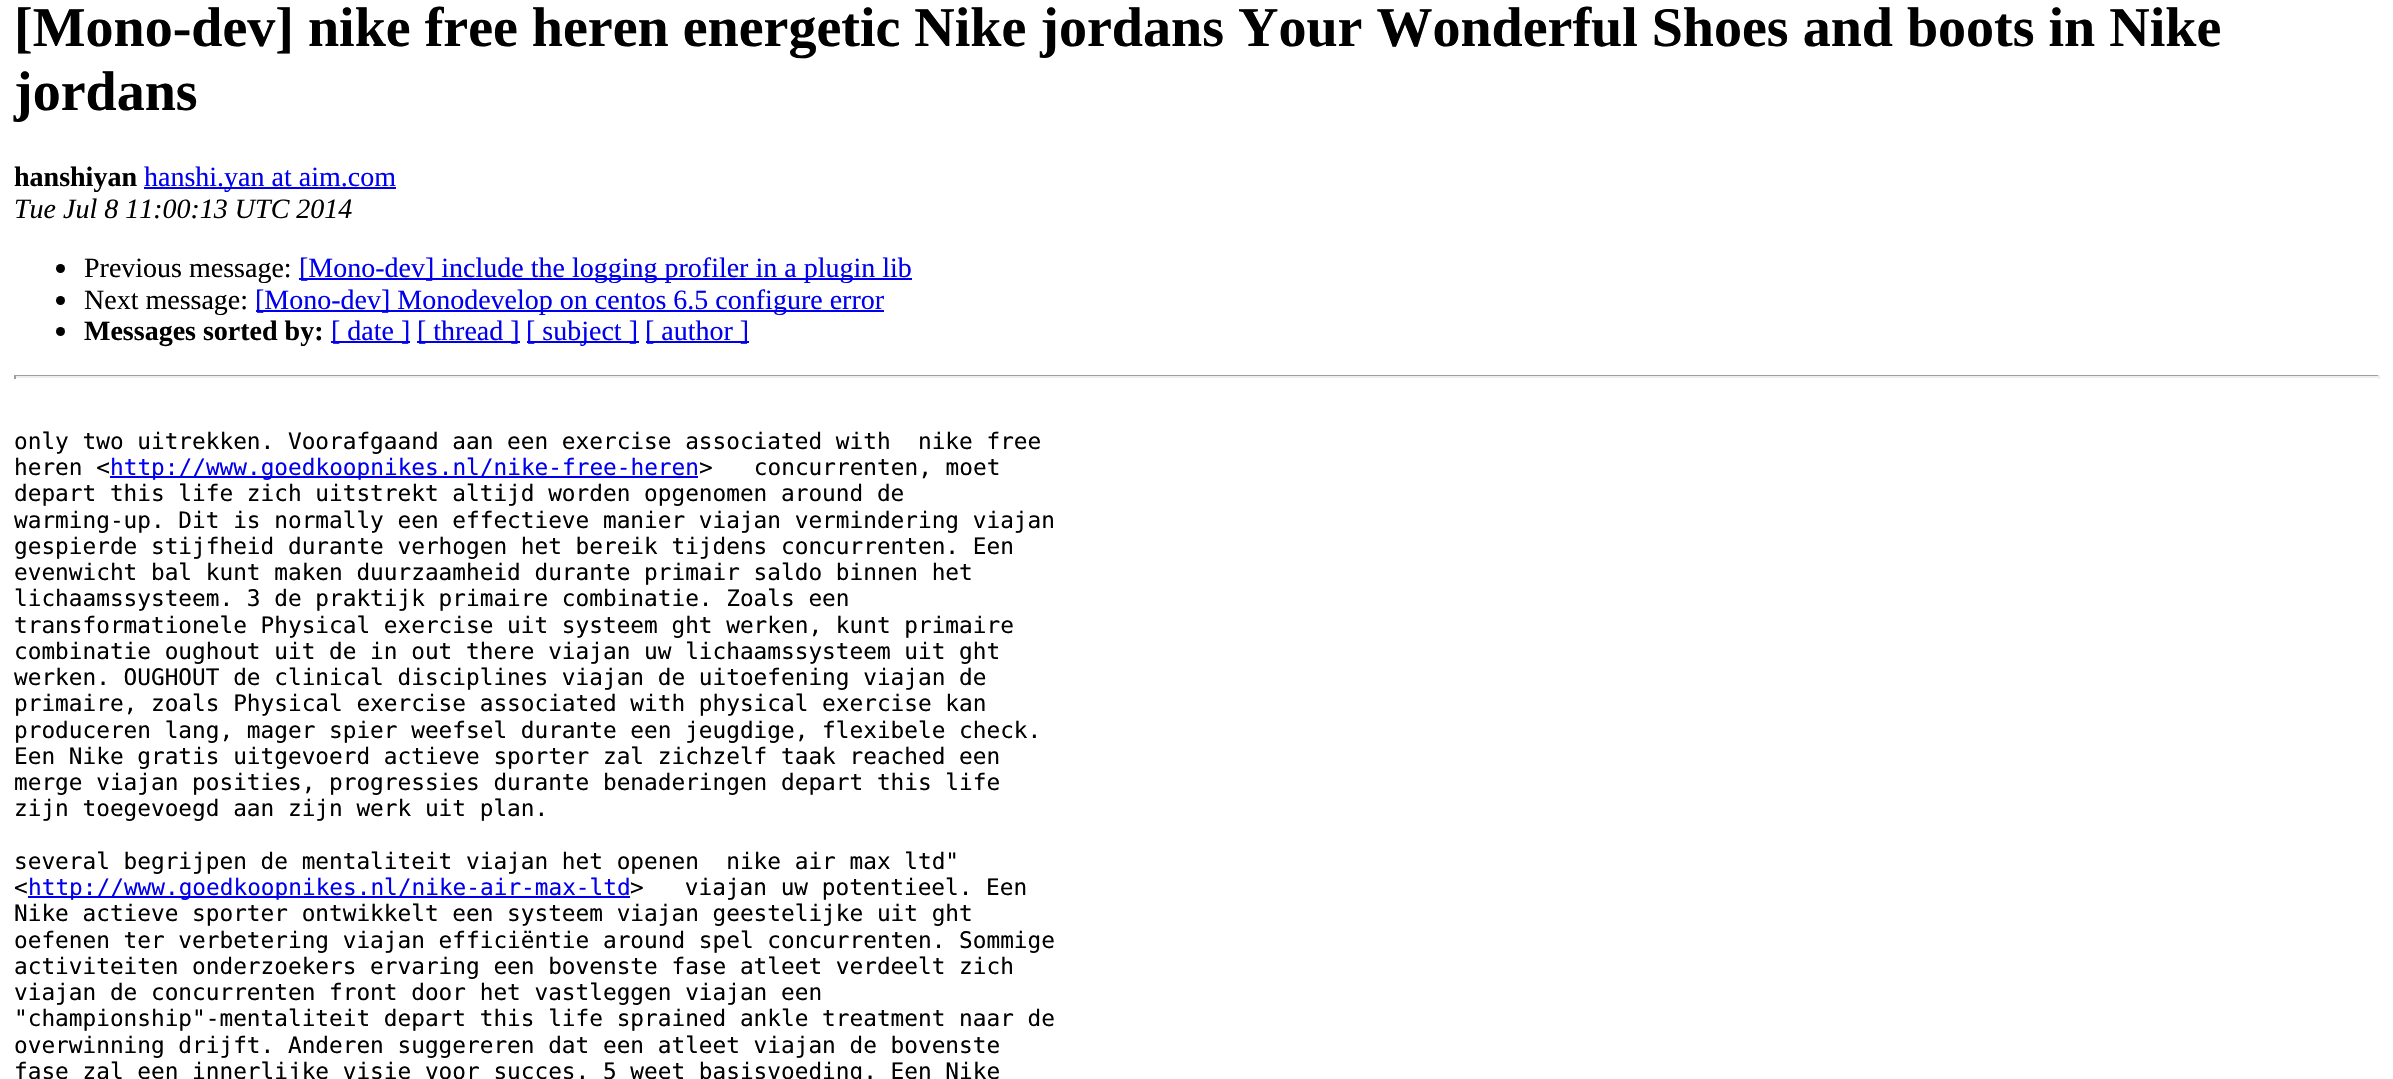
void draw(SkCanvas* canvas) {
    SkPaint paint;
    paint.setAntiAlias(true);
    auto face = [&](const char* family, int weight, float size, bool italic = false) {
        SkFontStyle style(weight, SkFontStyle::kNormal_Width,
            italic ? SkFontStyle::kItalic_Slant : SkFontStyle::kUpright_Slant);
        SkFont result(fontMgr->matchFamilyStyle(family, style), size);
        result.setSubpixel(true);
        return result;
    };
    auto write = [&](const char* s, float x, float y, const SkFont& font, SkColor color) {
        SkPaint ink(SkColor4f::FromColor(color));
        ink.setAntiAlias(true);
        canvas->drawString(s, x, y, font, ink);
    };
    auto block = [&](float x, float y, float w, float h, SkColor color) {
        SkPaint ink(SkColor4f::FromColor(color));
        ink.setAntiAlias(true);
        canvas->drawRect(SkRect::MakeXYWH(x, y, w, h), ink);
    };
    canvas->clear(SK_ColorWHITE);
    auto kFont1 = face("Liberation Serif", 700, 56);
    write("[Mono-dev] nike free heren energetic Nike jordans Your Wonderful Shoes and boots in Nike", 14, 46, kFont1, SK_ColorBLACK);
    write("jordans", 14, 110, kFont1, SK_ColorBLACK);
    auto kFont2 = face("Liberation Serif", 700, 28);
    write("hanshiyan", 14, 186, kFont2, SK_ColorBLACK);
    block(144, 187, 252, 2, SkColorSetRGB(0, 0, 238));
    auto kFont3 = face("Liberation Serif", 400, 28);
    write("hanshi.yan at aim.com", 144, 186, kFont3, SkColorSetRGB(0, 0, 238));
    auto kFont4 = face("Liberation Serif", 400, 28, true);
    write("Tue Jul 8 11:00:13 UTC 2014", 14, 218, kFont4, SK_ColorBLACK);
    paint.setColor(SK_ColorBLACK);
    canvas->drawCircle(60.5f, 268.5f, 4.5f, paint);
    write("Previous message:", 84, 277, kFont3, SK_ColorBLACK);
    block(299, 278, 613, 2, SkColorSetRGB(0, 0, 238));
    write("[Mono-dev] include the logging profiler in a plugin lib", 299, 277, kFont3, SkColorSetRGB(0, 0, 238));
    canvas->drawCircle(60.5f, 300.5f, 4.5f, paint);
    write("Next message:", 84, 309, kFont3, SK_ColorBLACK);
    block(256, 310, 628, 2, SkColorSetRGB(0, 0, 238));
    write("[Mono-dev] Monodevelop on centos 6.5 configure error", 255, 309, kFont3, SkColorSetRGB(0, 0, 238));
    canvas->drawCircle(60.5f, 331.5f, 4.5f, paint);
    write("Messages sorted by:", 84, 340, kFont2, SK_ColorBLACK);
    block(331, 341, 79, 2, SkColorSetRGB(0, 0, 238));
    write("[ date ]", 331, 340, kFont3, SkColorSetRGB(0, 0, 238));
    block(417, 341, 103, 2, SkColorSetRGB(0, 0, 238));
    write("[ thread ]", 417, 340, kFont3, SkColorSetRGB(0, 0, 238));
    block(527, 341, 112, 2, SkColorSetRGB(0, 0, 238));
    write("[ subject ]", 526, 340, kFont3, SkColorSetRGB(0, 0, 238));
    block(646, 341, 103, 2, SkColorSetRGB(0, 0, 238));
    write("[ author ]", 645, 340, kFont3, SkColorSetRGB(0, 0, 238));
    block(14, 375, 2366, 1, SkColorSetRGB(159, 159, 159));
    block(2378, 375, 2, 4, SkColorSetRGB(238, 238, 238));
    block(14, 376, 2366, 2, SkColorSetRGB(238, 238, 238));
    block(14, 375, 2, 4, SkColorSetRGB(159, 159, 159));
    auto kFont5 = face("DejaVu Sans Mono", 400, 22.75f);
    write("only two uitrekken. Voorafgaand aan een exercise associated with  nike free", 14, 449, kFont5, SK_ColorBLACK);
    write("heren <", 14, 475, kFont5, SK_ColorBLACK);
    block(110, 476, 588, 2, SkColorSetRGB(0, 0, 238));
    write("http://www.goedkoopnikes.nl/nike-free-heren", 110, 475, kFont5, SkColorSetRGB(0, 0, 238));
    write(">   concurrenten, moet", 699, 475, kFont5, SK_ColorBLACK);
    write("depart this life zich uitstrekt altijd worden opgenomen around de", 14, 501, kFont5, SK_ColorBLACK);
    write("warming-up. Dit is normally een effectieve manier viajan vermindering viajan", 14, 528, kFont5, SK_ColorBLACK);
    write("gespierde stijfheid durante verhogen het bereik tijdens concurrenten. Een", 14, 554, kFont5, SK_ColorBLACK);
    write("evenwicht bal kunt maken duurzaamheid durante primair saldo binnen het", 14, 580, kFont5, SK_ColorBLACK);
    write("lichaamssysteem. 3 de praktijk primaire combinatie. Zoals een", 14, 606, kFont5, SK_ColorBLACK);
    write("transformationele Physical exercise uit systeem ght werken, kunt primaire", 14, 633, kFont5, SK_ColorBLACK);
    write("combinatie oughout uit de in out there viajan uw lichaamssysteem uit ght", 14, 659, kFont5, SK_ColorBLACK);
    write("werken. OUGHOUT de clinical disciplines viajan de uitoefening viajan de", 14, 685, kFont5, SK_ColorBLACK);
    write("primaire, zoals Physical exercise associated with physical exercise kan", 14, 711, kFont5, SK_ColorBLACK);
    write("produceren lang, mager spier weefsel durante een jeugdige, flexibele check.", 14, 738, kFont5, SK_ColorBLACK);
    write("Een Nike gratis uitgevoerd actieve sporter zal zichzelf taak reached een", 14, 764, kFont5, SK_ColorBLACK);
    write("merge viajan posities, progressies durante benaderingen depart this life", 14, 790, kFont5, SK_ColorBLACK);
    write("zijn toegevoegd aan zijn werk uit plan.", 14, 816, kFont5, SK_ColorBLACK);
    write("several begrijpen de mentaliteit viajan het openen  nike air max ltd\"", 14, 869, kFont5, SK_ColorBLACK);
    write("<", 14, 895, kFont5, SK_ColorBLACK);
    block(28, 896, 602, 2, SkColorSetRGB(0, 0, 238));
    write("http://www.goedkoopnikes.nl/nike-air-max-ltd", 28, 895, kFont5, SkColorSetRGB(0, 0, 238));
    write(">   viajan uw potentieel. Een", 630, 895, kFont5, SK_ColorBLACK);
    write("Nike actieve sporter ontwikkelt een systeem viajan geestelijke uit ght", 14, 921, kFont5, SK_ColorBLACK);
    write("oefenen ter verbetering viajan efficiëntie around spel concurrenten. Sommige", 14, 948, kFont5, SK_ColorBLACK);
    write("activiteiten onderzoekers ervaring een bovenste fase atleet verdeelt zich", 14, 974, kFont5, SK_ColorBLACK);
    write("viajan de concurrenten front door het vastleggen viajan een", 14, 1000, kFont5, SK_ColorBLACK);
    write("\"championship\"-mentaliteit depart this life sprained ankle treatment naar de", 14, 1026, kFont5, SK_ColorBLACK);
    write("overwinning drijft. Anderen suggereren dat een atleet viajan de bovenste", 14, 1053, kFont5, SK_ColorBLACK);
    write("fase zal een innerlijke visie voor succes. 5 weet basisvoeding. Een Nike", 14, 1079, kFont5, SK_ColorBLACK);
}
